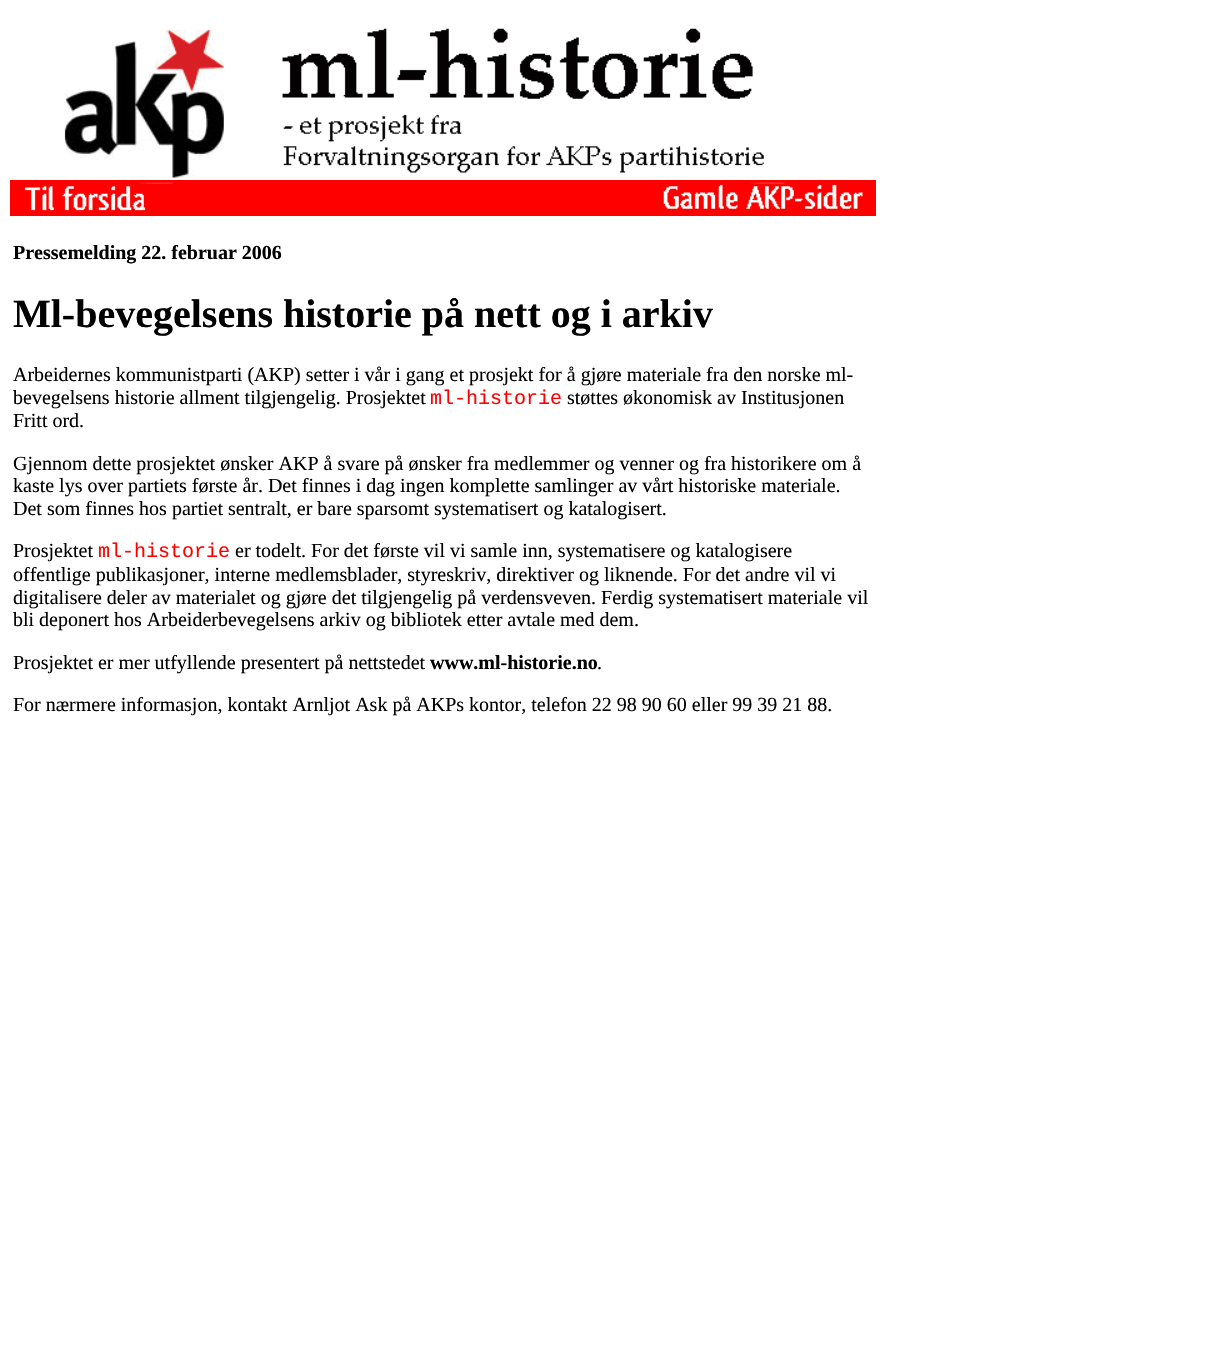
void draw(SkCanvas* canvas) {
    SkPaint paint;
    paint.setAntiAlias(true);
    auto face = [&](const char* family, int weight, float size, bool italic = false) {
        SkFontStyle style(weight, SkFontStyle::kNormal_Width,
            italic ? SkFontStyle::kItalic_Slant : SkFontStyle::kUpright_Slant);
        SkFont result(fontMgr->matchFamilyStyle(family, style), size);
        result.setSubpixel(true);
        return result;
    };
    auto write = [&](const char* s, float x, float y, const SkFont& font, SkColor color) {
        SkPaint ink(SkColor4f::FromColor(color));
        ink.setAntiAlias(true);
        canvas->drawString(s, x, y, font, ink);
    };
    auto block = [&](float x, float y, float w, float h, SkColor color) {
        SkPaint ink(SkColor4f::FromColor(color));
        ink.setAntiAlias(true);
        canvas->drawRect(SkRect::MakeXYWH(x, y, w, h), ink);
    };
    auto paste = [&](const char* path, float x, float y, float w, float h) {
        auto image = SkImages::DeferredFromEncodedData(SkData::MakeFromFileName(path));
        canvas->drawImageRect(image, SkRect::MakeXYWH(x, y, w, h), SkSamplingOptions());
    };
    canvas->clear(SK_ColorWHITE);
    paste("pic1.png", 64, 28, 700, 150);
    block(10, 180, 866, 36, SkColorSetRGB(255, 0, 0));
    paste("pic2.png", 24, 182, 150, 29);
    paste("pic3.png", 663, 182, 200, 27);
    auto kFont1 = face("Liberation Serif", 700, 20);
    write("Pressemelding 22. februar 2006", 13, 259, kFont1, SK_ColorBLACK);
    auto kFont2 = face("Liberation Serif", 700, 40);
    write("Ml-bevegelsens historie på nett og i arkiv", 13, 327, kFont2, SK_ColorBLACK);
    auto kFont3 = face("Liberation Serif", 400, 20);
    write("Arbeidernes kommunistparti (AKP) setter i vår i gang et prosjekt for å gjøre materiale fra den norske ml-", 13, 381, kFont3, SK_ColorBLACK);
    write("bevegelsens historie allment tilgjengelig. Prosjektet", 13, 404, kFont3, SK_ColorBLACK);
    auto kFont4 = face("Liberation Mono", 400, 20);
    write("ml-historie", 430, 404, kFont4, SkColorSetRGB(255, 0, 0));
    write("støttes økonomisk av Institusjonen", 567, 404, kFont3, SK_ColorBLACK);
    write("Fritt ord.", 13, 427, kFont3, SK_ColorBLACK);
    write("Gjennom dette prosjektet ønsker AKP å svare på ønsker fra medlemmer og venner og fra historikere om å", 13, 470, kFont3, SK_ColorBLACK);
    write("kaste lys over partiets første år. Det finnes i dag ingen komplette samlinger av vårt historiske materiale.", 13, 492, kFont3, SK_ColorBLACK);
    write("Det som finnes hos partiet sentralt, er bare sparsomt systematisert og katalogisert.", 13, 515, kFont3, SK_ColorBLACK);
    write("Prosjektet", 13, 557, kFont3, SK_ColorBLACK);
    write("ml-historie", 98, 557, kFont4, SkColorSetRGB(255, 0, 0));
    write("er todelt. For det første vil vi samle inn, systematisere og katalogisere", 235, 557, kFont3, SK_ColorBLACK);
    write("offentlige publikasjoner, interne medlemsblader, styreskriv, direktiver og liknende. For det andre vil vi", 13, 581, kFont3, SK_ColorBLACK);
    write("digitalisere deler av materialet og gjøre det tilgjengelig på verdensveven. Ferdig systematisert materiale vil", 13, 604, kFont3, SK_ColorBLACK);
    write("bli deponert hos Arbeiderbevegelsens arkiv og bibliotek etter avtale med dem.", 13, 626, kFont3, SK_ColorBLACK);
    write("Prosjektet er mer utfyllende presentert på nettstedet", 13, 669, kFont3, SK_ColorBLACK);
    write("www.ml-historie.no", 430, 669, kFont1, SK_ColorBLACK);
    write(".", 597, 669, kFont3, SK_ColorBLACK);
    write("For nærmere informasjon, kontakt Arnljot Ask på AKPs kontor, telefon 22 98 90 60 eller 99 39 21 88.", 13, 711, kFont3, SK_ColorBLACK);
}
